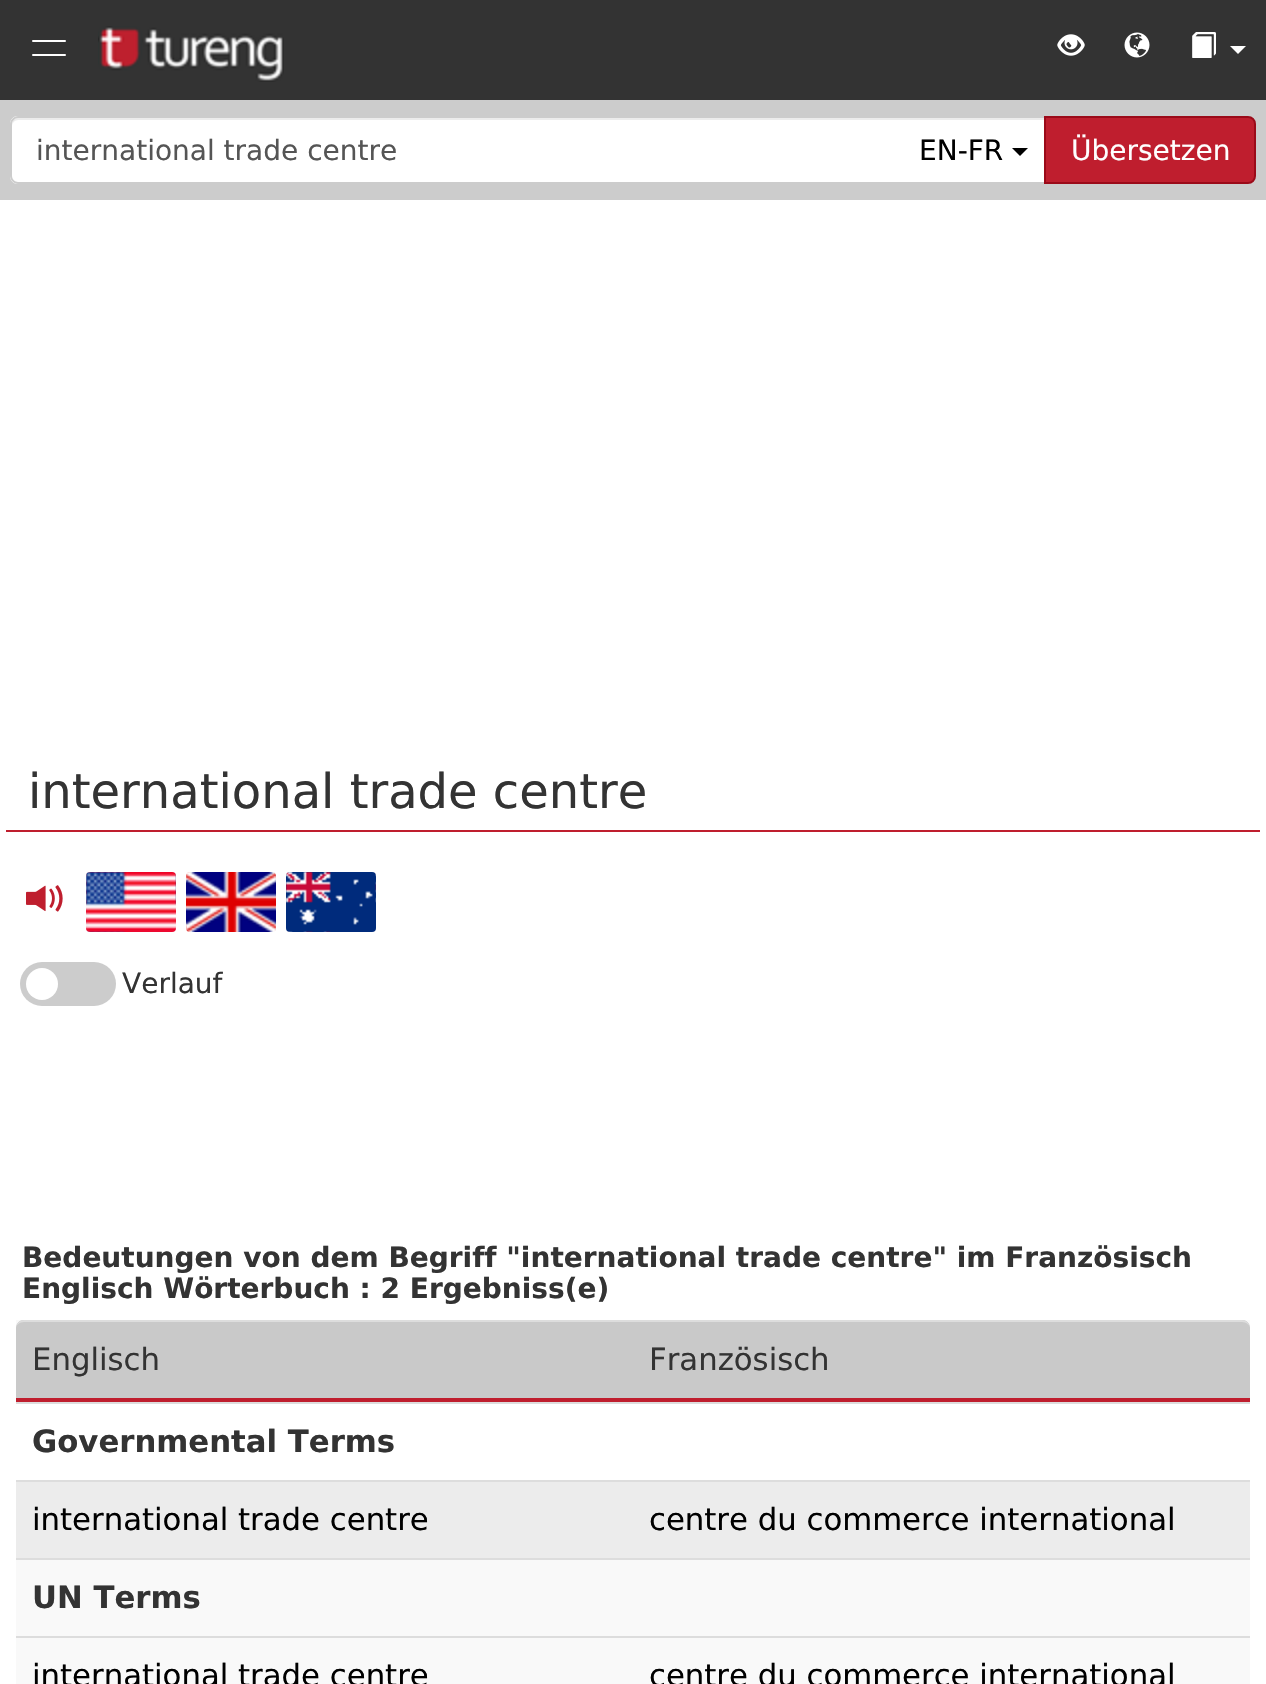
void draw(SkCanvas* canvas) {
    SkPaint paint;
    paint.setAntiAlias(true);
    auto face = [&](const char* family, int weight, float size, bool italic = false) {
        SkFontStyle style(weight, SkFontStyle::kNormal_Width,
            italic ? SkFontStyle::kItalic_Slant : SkFontStyle::kUpright_Slant);
        SkFont result(fontMgr->matchFamilyStyle(family, style), size);
        result.setSubpixel(true);
        return result;
    };
    auto write = [&](const char* s, float x, float y, const SkFont& font, SkColor color) {
        SkPaint ink(SkColor4f::FromColor(color));
        ink.setAntiAlias(true);
        canvas->drawString(s, x, y, font, ink);
    };
    auto block = [&](float x, float y, float w, float h, SkColor color) {
        SkPaint ink(SkColor4f::FromColor(color));
        ink.setAntiAlias(true);
        canvas->drawRect(SkRect::MakeXYWH(x, y, w, h), ink);
    };
    auto card = [&](float x, float y, float w, float h, float radius, SkColor color) {
        SkPaint ink(SkColor4f::FromColor(color));
        ink.setAntiAlias(true);
        canvas->drawRoundRect(SkRect::MakeXYWH(x, y, w, h), radius, radius, ink);
    };
    auto paste = [&](const char* path, float x, float y, float w, float h) {
        auto image = SkImages::DeferredFromEncodedData(SkData::MakeFromFileName(path));
        canvas->drawImageRect(image, SkRect::MakeXYWH(x, y, w, h), SkSamplingOptions());
    };
    canvas->clear(SkColorSetRGB(204, 204, 204));
    block(0, 0, 1266, 100, SkColorSetRGB(51, 51, 51));
    card(32, 40, 34, 2, 1, SK_ColorWHITE);
    card(32, 54, 34, 2, 1, SK_ColorWHITE);
    paste("pic1.png", 98, 26, 186, 56);
    paste("pic2.png", 1057, 34, 28, 22);
    paste("pic3.png", 1124, 32, 26, 26);
    paste("pic4.png", 1192, 32, 24, 26);
    paint.setColor(SK_ColorWHITE);
    canvas->drawPath(SkPathBuilder().moveTo(1230, 46).lineTo(1246, 46).lineTo(1238, 54).close().detach(), paint);
    canvas->drawPath(SkPathBuilder().moveTo(18, 116).lineTo(904, 116).lineTo(904, 184).lineTo(18, 184).cubicTo(13.5f, 184, 10, 180.5f, 10, 176).lineTo(10, 124).cubicTo(10, 119.5f, 13.5f, 116, 18, 116).close().detach(), paint);
    paint.setColor(SkColorSetRGB(236, 236, 236));
    canvas->drawPath(SkPathBuilder().moveTo(18, 120).lineTo(904, 120).lineTo(904, 118).lineTo(18, 118).cubicTo(13, 118, 12, 122, 12, 126).cubicTo(12, 123, 15, 120, 18, 120).close().detach(), paint);
    paint.setColor(SkColorSetRGB(204, 204, 204));
    canvas->drawPath(SkPathBuilder(SkPathFillType::kEvenOdd).moveTo(18, 116).lineTo(904, 116).lineTo(904, 184).lineTo(18, 184).cubicTo(14, 184, 10, 180, 10, 176).lineTo(10, 124).cubicTo(10, 120, 14, 116, 18, 116).close().moveTo(18, 118).lineTo(904, 118).lineTo(904, 182).lineTo(18, 182).cubicTo(15, 182, 12, 179, 12, 176).lineTo(12, 124).cubicTo(12, 121, 15, 118, 18, 118).close().detach(), paint);
    auto kFont1 = face("DejaVu Sans", 400, 28);
    write("international trade centre", 36, 160, kFont1, SkColorSetRGB(85, 85, 85));
    block(904, 120, 140, 62, SK_ColorWHITE);
    block(904, 118, 140, 2, SkColorSetRGB(236, 236, 236));
    write("EN-FR", 919, 160, kFont1, SK_ColorBLACK);
    paint.setColor(SK_ColorBLACK);
    canvas->drawPath(SkPathBuilder().moveTo(1012, 148).lineTo(1028, 148).lineTo(1020, 156).close().detach(), paint);
    paint.setColor(SkColorSetRGB(191, 30, 46));
    canvas->drawPath(SkPathBuilder().moveTo(1045, 117).lineTo(1248, 117).cubicTo(1252, 117, 1255, 120, 1255, 124).lineTo(1255, 176).cubicTo(1255, 180, 1252, 183, 1248, 183).lineTo(1045, 183).close().detach(), paint);
    paint.setStyle(SkPaint::kStroke_Style);
    paint.setStrokeWidth(2);
    paint.setColor(SkColorSetRGB(155, 10, 25));
    canvas->drawPath(SkPathBuilder().moveTo(1045, 117).lineTo(1248, 117).cubicTo(1252, 117, 1255, 120, 1255, 124).lineTo(1255, 176).cubicTo(1255, 180, 1252, 183, 1248, 183).lineTo(1045, 183).close().detach(), paint);
    write("Übersetzen", 1071, 160, kFont1, SK_ColorWHITE);
    block(0, 200, 1266, 1484, SK_ColorWHITE);
    block(6, 830, 1254, 2, SkColorSetRGB(191, 30, 46));
    auto kFont2 = face("DejaVu Sans", 400, 48);
    write("international trade centre", 28, 808, kFont2, SkColorSetRGB(51, 51, 51));
    paste("pic5.png", 26, 885, 37, 27);
    paste("pic6.png", 86, 872, 90, 60);
    paste("pic7.png", 186, 872, 90, 60);
    paste("pic8.png", 286, 872, 90, 60);
    card(20, 962, 96, 44, 22, SkColorSetRGB(204, 204, 204));
    paint.setStyle(SkPaint::kFill_Style);
    paint.setColor(SK_ColorWHITE);
    canvas->drawCircle(42, 984, 16, paint);
    write("Verlauf", 122, 993, kFont1, SkColorSetRGB(51, 51, 51));
    auto kFont3 = face("DejaVu Sans", 700, 28);
    write("Bedeutungen von dem Begriff \"international trade centre\" im Französisch", 22, 1267, kFont3, SkColorSetRGB(51, 51, 51));
    write("Englisch Wörterbuch : 2 Ergebniss(e)", 22, 1298, kFont3, SkColorSetRGB(51, 51, 51));
    block(16, 1320, 1234, 8, SkColorSetRGB(249, 249, 249));
    paint.setColor(SkColorSetRGB(201, 201, 201));
    canvas->drawPath(SkPathBuilder().moveTo(24, 1320).lineTo(634, 1320).lineTo(634, 1402).lineTo(16, 1402).lineTo(16, 1328).cubicTo(16, 1323.5f, 19.5f, 1320, 24, 1320).close().detach(), paint);
    paint.setColor(SkColorSetRGB(221, 221, 221));
    canvas->drawPath(SkPathBuilder().moveTo(24, 1322).lineTo(634, 1322).lineTo(634, 1320).lineTo(24, 1320).cubicTo(20, 1320, 16, 1324, 16, 1328).cubicTo(16, 1325, 20, 1322, 24, 1322).close().detach(), paint);
    block(16, 1398, 618, 4, SkColorSetRGB(191, 30, 46));
    auto kFont4 = face("DejaVu Sans", 400, 30.75f);
    write("Englisch", 32, 1370, kFont4, SkColorSetRGB(51, 51, 51));
    paint.setColor(SkColorSetRGB(201, 201, 201));
    canvas->drawPath(SkPathBuilder().moveTo(634, 1320).lineTo(1242, 1320).cubicTo(1246.5f, 1320, 1250, 1323.5f, 1250, 1328).lineTo(1250, 1402).lineTo(634, 1402).close().detach(), paint);
    paint.setColor(SkColorSetRGB(221, 221, 221));
    canvas->drawPath(SkPathBuilder().moveTo(634, 1320).lineTo(634, 1322).lineTo(1242, 1322).cubicTo(1246, 1322, 1250, 1325, 1250, 1328).cubicTo(1250, 1324, 1246, 1320, 1242, 1320).close().detach(), paint);
    block(634, 1398, 616, 4, SkColorSetRGB(191, 30, 46));
    write("Französisch", 649, 1370, kFont4, SkColorSetRGB(51, 51, 51));
    block(16, 1402, 1234, 2, SkColorSetRGB(221, 221, 221));
    auto kFont5 = face("DejaVu Sans", 700, 30.75f);
    write("Governmental Terms", 32, 1452, kFont5, SkColorSetRGB(51, 51, 51));
    block(16, 1482, 1234, 76, SkColorSetRGB(236, 236, 236));
    block(16, 1480, 1234, 2, SkColorSetRGB(221, 221, 221));
    write("international trade centre", 32, 1530, kFont4, SK_ColorBLACK);
    write("centre du commerce international", 649, 1530, kFont4, SK_ColorBLACK);
    block(16, 1560, 1234, 76, SkColorSetRGB(249, 249, 249));
    block(16, 1558, 1234, 2, SkColorSetRGB(221, 221, 221));
    write("UN Terms", 32, 1608, kFont5, SkColorSetRGB(51, 51, 51));
    block(16, 1638, 1234, 46, SkColorSetRGB(249, 249, 249));
    block(16, 1636, 1234, 2, SkColorSetRGB(221, 221, 221));
    write("international trade centre", 32, 1686, kFont4, SK_ColorBLACK);
    write("centre du commerce international", 649, 1686, kFont4, SK_ColorBLACK);
}
